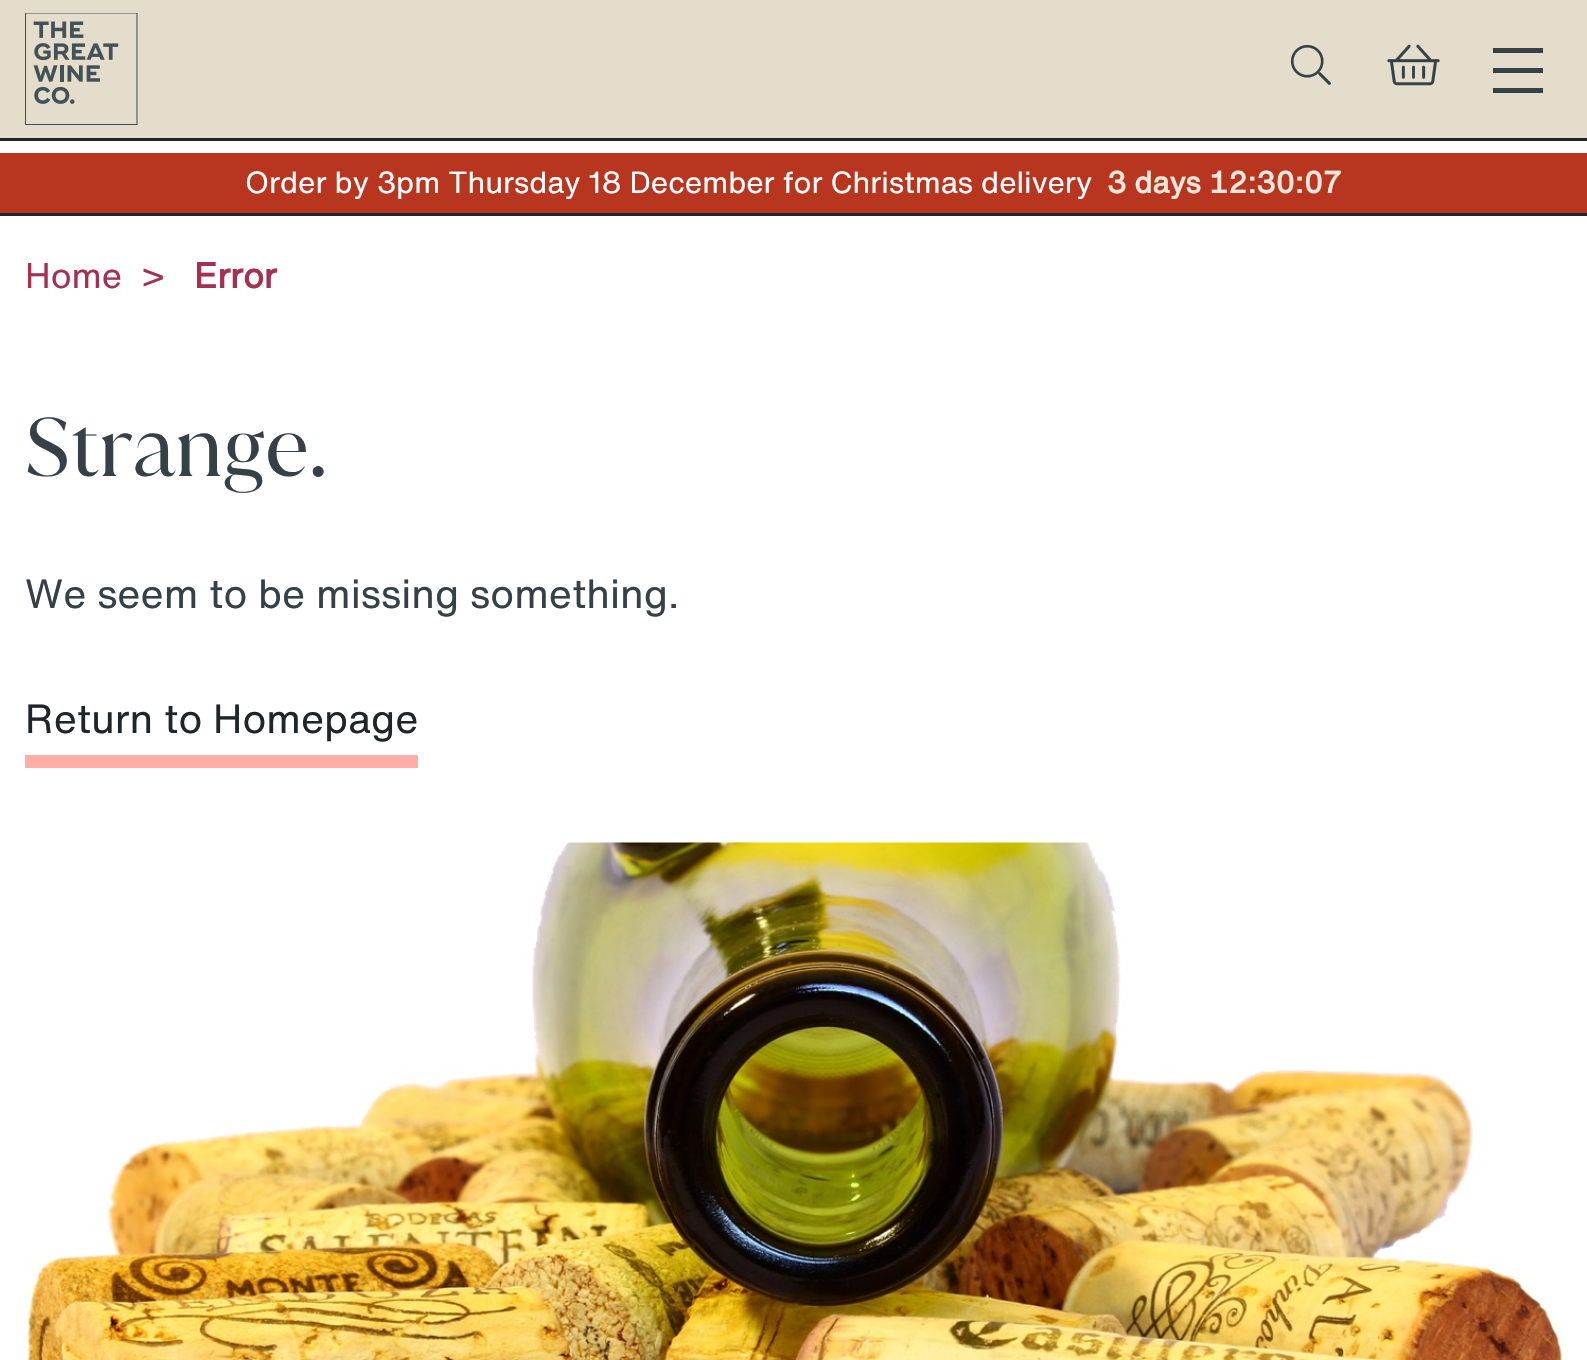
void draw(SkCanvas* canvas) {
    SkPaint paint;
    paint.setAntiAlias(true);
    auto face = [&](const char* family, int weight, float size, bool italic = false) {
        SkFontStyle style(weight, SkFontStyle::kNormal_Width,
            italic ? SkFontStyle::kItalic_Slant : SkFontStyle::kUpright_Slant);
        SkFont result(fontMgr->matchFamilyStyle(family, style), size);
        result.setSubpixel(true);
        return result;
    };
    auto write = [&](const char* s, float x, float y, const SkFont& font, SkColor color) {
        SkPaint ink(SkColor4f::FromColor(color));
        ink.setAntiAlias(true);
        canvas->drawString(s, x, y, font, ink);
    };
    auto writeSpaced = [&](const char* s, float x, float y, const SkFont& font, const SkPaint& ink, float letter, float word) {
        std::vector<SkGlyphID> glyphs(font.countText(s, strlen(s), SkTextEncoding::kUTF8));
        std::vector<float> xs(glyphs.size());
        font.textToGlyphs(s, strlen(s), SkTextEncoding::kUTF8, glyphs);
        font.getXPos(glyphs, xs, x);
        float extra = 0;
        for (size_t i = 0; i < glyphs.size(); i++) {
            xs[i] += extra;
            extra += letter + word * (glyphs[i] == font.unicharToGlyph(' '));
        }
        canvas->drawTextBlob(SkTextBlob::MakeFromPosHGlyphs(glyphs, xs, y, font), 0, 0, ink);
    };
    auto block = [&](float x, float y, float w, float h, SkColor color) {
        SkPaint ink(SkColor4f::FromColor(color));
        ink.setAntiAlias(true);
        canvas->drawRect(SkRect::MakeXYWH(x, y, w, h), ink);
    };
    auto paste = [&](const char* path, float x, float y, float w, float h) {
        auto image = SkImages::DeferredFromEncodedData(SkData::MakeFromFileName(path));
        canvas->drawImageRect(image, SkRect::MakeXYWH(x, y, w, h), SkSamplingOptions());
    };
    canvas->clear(SK_ColorWHITE);
    block(0, 0, 1587, 138, SkColorSetRGB(228, 221, 203));
    block(0, 138, 1587, 3, SkColorSetRGB(31, 38, 42));
    paste("pic1.png", 25, 13, 113, 112);
    paste("pic2.png", 1290, 44, 41, 41);
    paste("pic3.png", 1387, 44, 53, 42);
    block(1493, 68, 50, 5, SkColorSetRGB(53, 64, 71));
    block(1493, 48, 50, 5, SkColorSetRGB(53, 64, 71));
    block(1493, 88, 50, 5, SkColorSetRGB(53, 64, 71));
    block(0, 153, 1587, 60, SkColorSetRGB(184, 54, 31));
    block(0, 213, 1587, 3, SkColorSetRGB(31, 38, 42));
    auto kFont1 = face("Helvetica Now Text", 400, 30);
    write("Order by 3pm Thursday 18 December for Christmas delivery", 245, 193, kFont1, SK_ColorWHITE);
    auto kFont2 = face("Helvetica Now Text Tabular", 700, 30);
    write("3 days 12:30:07", 1107, 193, kFont2, SkColorSetRGB(235, 231, 220));
    auto kFont3 = face("Helvetica Now Text", 400, 35);
    write("Home", 25, 288, kFont3, SkColorSetRGB(165, 48, 81));
    write(">", 142, 290, kFont3, SkColorSetRGB(165, 48, 81));
    auto kFont4 = face("Helvetica Now Text", 700, 35);
    write("Error", 194, 288, kFont4, SkColorSetRGB(165, 48, 81));
    auto kFont5 = face("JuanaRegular", 400, 80);
    paint.setColor(SkColorSetRGB(53, 64, 71));
    writeSpaced("Strange.", 25, 476, kFont5, paint, 0.5f, 0);
    auto kFont6 = face("Helvetica Now Text", 400, 40);
    write("We seem to be missing something.", 25, 608, kFont6, SkColorSetRGB(53, 64, 71));
    block(25, 755, 393, 13, SkColorSetRGB(255, 173, 165));
    write("Return to Homepage", 25, 733, kFont6, SkColorSetRGB(31, 38, 42));
    paste("pic4.png", 25, 842, 1538, 518);
}
